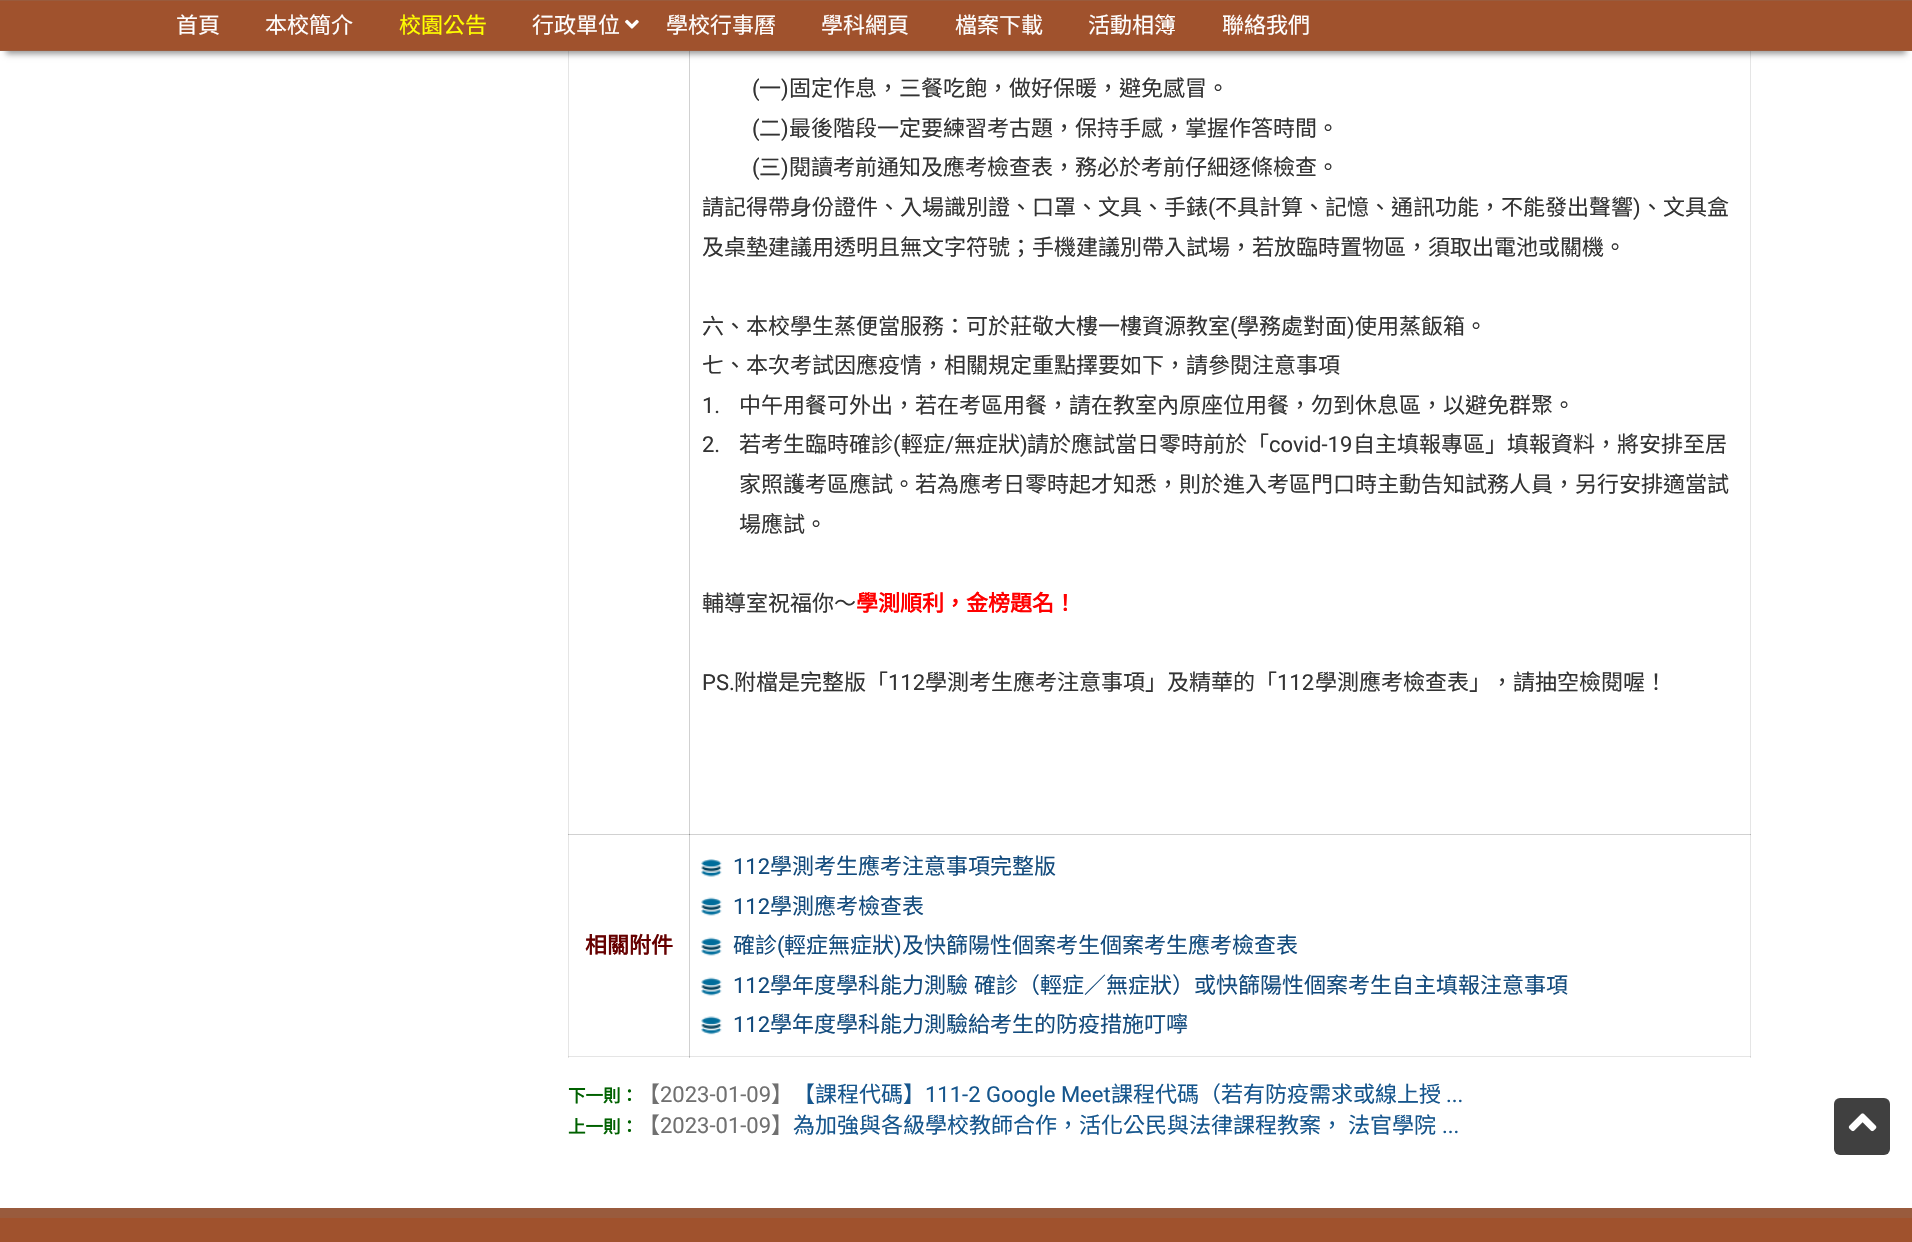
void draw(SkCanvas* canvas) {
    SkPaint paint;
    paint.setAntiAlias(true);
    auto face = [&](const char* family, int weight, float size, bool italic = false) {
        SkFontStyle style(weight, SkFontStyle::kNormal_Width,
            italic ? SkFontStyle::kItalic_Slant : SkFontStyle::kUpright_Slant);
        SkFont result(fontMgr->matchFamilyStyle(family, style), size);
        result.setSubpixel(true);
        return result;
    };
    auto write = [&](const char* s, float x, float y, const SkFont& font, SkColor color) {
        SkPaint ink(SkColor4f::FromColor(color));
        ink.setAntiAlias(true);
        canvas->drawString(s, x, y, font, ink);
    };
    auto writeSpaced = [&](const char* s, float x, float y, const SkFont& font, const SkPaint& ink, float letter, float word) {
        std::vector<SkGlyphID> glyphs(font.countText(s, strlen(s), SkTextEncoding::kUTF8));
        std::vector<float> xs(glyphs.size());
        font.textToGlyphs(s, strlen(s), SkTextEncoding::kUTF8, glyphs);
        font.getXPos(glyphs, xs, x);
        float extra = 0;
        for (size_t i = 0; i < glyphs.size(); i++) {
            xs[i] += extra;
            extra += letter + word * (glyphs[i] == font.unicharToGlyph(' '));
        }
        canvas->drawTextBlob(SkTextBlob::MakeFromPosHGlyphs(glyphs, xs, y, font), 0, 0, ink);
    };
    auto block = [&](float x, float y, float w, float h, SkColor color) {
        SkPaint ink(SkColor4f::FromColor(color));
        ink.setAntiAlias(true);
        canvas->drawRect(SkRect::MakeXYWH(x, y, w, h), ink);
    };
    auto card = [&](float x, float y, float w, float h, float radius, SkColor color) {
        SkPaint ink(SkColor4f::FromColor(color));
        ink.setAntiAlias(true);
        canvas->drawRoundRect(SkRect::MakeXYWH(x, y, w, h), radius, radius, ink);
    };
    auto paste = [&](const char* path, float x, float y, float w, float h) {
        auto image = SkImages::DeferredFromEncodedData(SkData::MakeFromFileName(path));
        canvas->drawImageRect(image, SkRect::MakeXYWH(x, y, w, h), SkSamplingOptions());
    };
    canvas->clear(SK_ColorWHITE);
    block(568, 51, 1, 1007, SkColorSetRGB(229, 229, 229));
    block(689, 51, 1, 784, SkColorSetRGB(209, 209, 209));
    block(1750, 51, 1, 784, SkColorSetRGB(229, 229, 229));
    block(568, 1056, 122, 1, SkColorSetRGB(229, 229, 229));
    block(568, 1056, 1, 1, SkColorSetRGB(209, 209, 209));
    block(568, 834, 122, 1, SkColorSetRGB(209, 209, 209));
    block(568, 834, 1, 1, SkColorSetRGB(180, 180, 180));
    block(689, 834, 1, 224, SkColorSetRGB(209, 209, 209));
    block(689, 1056, 1062, 1, SkColorSetRGB(229, 229, 229));
    block(689, 1056, 1, 1, SkColorSetRGB(180, 180, 180));
    block(1750, 834, 1, 224, SkColorSetRGB(229, 229, 229));
    block(1750, 1056, 1, 1, SkColorSetRGB(209, 209, 209));
    paint.setColor(SkColorSetARGB(102, 0, 0, 0));
    paint.setMaskFilter(SkMaskFilter::MakeBlur(kNormal_SkBlurStyle, 3));
    canvas->drawRect(SkRect::MakeXYWH(6, 15, 1900, 39), paint);
    paint.setMaskFilter(nullptr);
    block(0, 1, 1912, 49, SkColorSetRGB(160, 82, 45));
    block(0, 0, 1912, 1, SkColorSetRGB(153, 91, 61));
    block(0, 50, 1912, 1, SkColorSetRGB(153, 91, 61));
    auto kFont1 = face("Noto Sans CJK TC", 400, 22);
    write("首頁", 176, 33, kFont1, SK_ColorWHITE);
    write("本校簡介", 265, 33, kFont1, SK_ColorWHITE);
    write("校園公告", 399, 33, kFont1, SkColorSetRGB(255, 255, 0));
    write("行政單位", 532, 33, kFont1, SK_ColorWHITE);
    paste("pic1.png", 625, 19, 14, 10);
    write("學校行事曆", 666, 33, kFont1, SK_ColorWHITE);
    write("學科網頁", 821, 33, kFont1, SK_ColorWHITE);
    write("檔案下載", 955, 33, kFont1, SK_ColorWHITE);
    write("活動相簿", 1088, 33, kFont1, SK_ColorWHITE);
    write("聯絡我們", 1222, 33, kFont1, SK_ColorWHITE);
    auto kFont2 = face("Roboto", 400, 22);
    write("(", 752, 96, kFont2, SkColorSetRGB(51, 51, 51));
    write("一", 759, 96, kFont1, SkColorSetRGB(51, 51, 51));
    write(")", 781, 96, kFont2, SkColorSetRGB(51, 51, 51));
    write("固定作息，三餐吃飽，做好保暖，避免感冒。", 789, 96, kFont1, SkColorSetRGB(51, 51, 51));
    write("(", 752, 136, kFont2, SkColorSetRGB(51, 51, 51));
    write("二", 759, 136, kFont1, SkColorSetRGB(51, 51, 51));
    write(")", 781, 136, kFont2, SkColorSetRGB(51, 51, 51));
    write("最後階段一定要練習考古題，保持手感，掌握作答時間。", 789, 136, kFont1, SkColorSetRGB(51, 51, 51));
    write("(", 752, 175, kFont2, SkColorSetRGB(51, 51, 51));
    write("三", 759, 175, kFont1, SkColorSetRGB(51, 51, 51));
    write(")", 781, 175, kFont2, SkColorSetRGB(51, 51, 51));
    write("閱讀考前通知及應考檢查表，務必於考前仔細逐條檢查。", 789, 175, kFont1, SkColorSetRGB(51, 51, 51));
    write("請記得帶身份證件、入場識別證、口罩、文具、手錶", 702, 215, kFont1, SkColorSetRGB(51, 51, 51));
    write("(", 1208, 215, kFont2, SkColorSetRGB(51, 51, 51));
    write("不具計算、記憶、通訊功能，不能發出聲響", 1215, 215, kFont1, SkColorSetRGB(51, 51, 51));
    write(")", 1633, 215, kFont2, SkColorSetRGB(51, 51, 51));
    write("、文具盒", 1641, 215, kFont1, SkColorSetRGB(51, 51, 51));
    write("及桌墊建議用透明且無文字符號；手機建議別帶入試場，若放臨時置物區，須取出電池或關機。", 702, 255, kFont1, SkColorSetRGB(51, 51, 51));
    write("六、本校學生蒸便當服務：可於莊敬大樓一樓資源教室", 702, 334, kFont1, SkColorSetRGB(51, 51, 51));
    write("(", 1230, 334, kFont2, SkColorSetRGB(51, 51, 51));
    write("學務處對面", 1237, 334, kFont1, SkColorSetRGB(51, 51, 51));
    write(")", 1347, 334, kFont2, SkColorSetRGB(51, 51, 51));
    write("使用蒸飯箱。", 1355, 334, kFont1, SkColorSetRGB(51, 51, 51));
    write("七、本次考試因應疫情，相關規定重點擇要如下，請參閱注意事項", 702, 373, kFont1, SkColorSetRGB(51, 51, 51));
    write("1.", 702, 413, kFont2, SkColorSetRGB(51, 51, 51));
    write("中午用餐可外出，若在考區用餐，請在教室內原座位用餐，勿到休息區，以避免群聚。", 739, 413, kFont1, SkColorSetRGB(51, 51, 51));
    write("2.", 702, 452, kFont2, SkColorSetRGB(51, 51, 51));
    write("若考生臨時確診", 739, 452, kFont1, SkColorSetRGB(51, 51, 51));
    write("(", 893, 452, kFont2, SkColorSetRGB(51, 51, 51));
    write("輕症", 901, 452, kFont1, SkColorSetRGB(51, 51, 51));
    write("/", 945, 452, kFont2, SkColorSetRGB(51, 51, 51));
    write("無症狀", 954, 452, kFont1, SkColorSetRGB(51, 51, 51));
    write(")", 1020, 452, kFont2, SkColorSetRGB(51, 51, 51));
    write("請於應試當日零時前於「", 1027, 452, kFont1, SkColorSetRGB(51, 51, 51));
    write("covid-19", 1269, 452, kFont2, SkColorSetRGB(51, 51, 51));
    write("自主填報專區」填報資料，將安排至居", 1353, 452, kFont1, SkColorSetRGB(51, 51, 51));
    write("家照護考區應試。若為應考日零時起才知悉，則於進入考區門口時主動告知試務人員，另行安排適當試", 739, 492, kFont1, SkColorSetRGB(51, 51, 51));
    write("場應試。", 739, 532, kFont1, SkColorSetRGB(51, 51, 51));
    write("輔導室祝福你～", 702, 611, kFont1, SkColorSetRGB(51, 51, 51));
    auto kFont3 = face("Noto Sans CJK TC", 700, 22);
    write("學測順利，金榜題名！", 856, 611, kFont3, SkColorSetRGB(255, 0, 0));
    write("PS.", 702, 690, kFont2, SkColorSetRGB(51, 51, 51));
    write("附檔是完整版「", 734, 690, kFont1, SkColorSetRGB(51, 51, 51));
    write("112", 888, 690, kFont2, SkColorSetRGB(51, 51, 51));
    write("學測考生應考注意事項」及精華的「", 925, 690, kFont1, SkColorSetRGB(51, 51, 51));
    write("112", 1277, 690, kFont2, SkColorSetRGB(51, 51, 51));
    write("學測應考檢查表」，請抽空檢閱喔！", 1315, 690, kFont1, SkColorSetRGB(51, 51, 51));
    write("相關附件", 585, 953, kFont3, SkColorSetRGB(102, 0, 0));
    block(689, 834, 1062, 1, SkColorSetRGB(209, 209, 209));
    block(689, 834, 1, 1, SkColorSetRGB(149, 149, 149));
    block(1750, 834, 1, 1, SkColorSetRGB(180, 180, 180));
    paste("pic2.png", 701, 859, 21, 18);
    write("112", 733, 874, kFont2, SkColorSetRGB(19, 75, 125));
    write("學測考生應考注意事項完整版", 770, 874, kFont1, SkColorSetRGB(19, 75, 125));
    paste("pic3.png", 701, 897, 21, 19);
    write("112", 733, 914, kFont2, SkColorSetRGB(19, 75, 125));
    write("學測應考檢查表", 770, 914, kFont1, SkColorSetRGB(19, 75, 125));
    paste("pic3.png", 701, 937, 21, 19);
    write("確診", 733, 953, kFont1, SkColorSetRGB(19, 75, 125));
    write("(", 777, 953, kFont2, SkColorSetRGB(19, 75, 125));
    write("輕症無症狀", 784, 953, kFont1, SkColorSetRGB(19, 75, 125));
    write(")", 894, 953, kFont2, SkColorSetRGB(19, 75, 125));
    write("及快篩陽性個案考生個案考生應考檢查表", 902, 953, kFont1, SkColorSetRGB(19, 75, 125));
    paste("pic3.png", 701, 977, 21, 19);
    write("112", 733, 993, kFont2, SkColorSetRGB(19, 75, 125));
    paint.setColor(SkColorSetRGB(19, 75, 125));
    writeSpaced("學年度學科能力測驗 確診（輕症／無症狀）或快篩陽性個案考生自主填報注意事項", 770, 993, kFont1, paint, 0, 1);
    paste("pic4.png", 701, 1016, 21, 19);
    write("112", 733, 1032, kFont2, SkColorSetRGB(19, 75, 125));
    write("學年度學科能力測驗給考生的防疫措施叮嚀", 770, 1032, kFont1, SkColorSetRGB(19, 75, 125));
    auto kFont4 = face("Noto Sans CJK TC", 700, 17.5f);
    write("下一則：", 568, 1102, kFont4, SkColorSetRGB(0, 97, 0));
    write("【", 638, 1102, kFont1, SkColorSetRGB(112, 112, 112));
    write("2023-01-09", 660, 1102, kFont2, SkColorSetRGB(112, 112, 112));
    write("】", 771, 1102, kFont1, SkColorSetRGB(112, 112, 112));
    write("【課程代碼】", 793, 1102, kFont1, SkColorSetRGB(22, 86, 141));
    write("111-2 Google Meet", 925, 1102, kFont2, SkColorSetRGB(22, 86, 141));
    write("課程代碼（若有防疫需求或線上授", 1111, 1102, kFont1, SkColorSetRGB(22, 86, 141));
    write("...", 1446, 1102, kFont2, SkColorSetRGB(22, 86, 141));
    write("上一則：", 568, 1133, kFont4, SkColorSetRGB(0, 97, 0));
    write("【", 638, 1133, kFont1, SkColorSetRGB(112, 112, 112));
    write("2023-01-09", 660, 1133, kFont2, SkColorSetRGB(112, 112, 112));
    write("】", 771, 1133, kFont1, SkColorSetRGB(112, 112, 112));
    write("為加強與各級學校教師合作，活化公民與法律課程教案， 法官學院", 793, 1133, kFont1, SkColorSetRGB(22, 86, 141));
    write("...", 1442, 1133, kFont2, SkColorSetRGB(22, 86, 141));
    block(0, 1218, 1912, 24, SkColorSetRGB(160, 82, 45));
    block(0, 1208, 1912, 10, SkColorSetRGB(153, 91, 61));
    card(1834, 1098, 56, 57, 6, SkColorSetRGB(64, 64, 64));
    paste("pic5.png", 1848, 1113, 29, 19);
}
